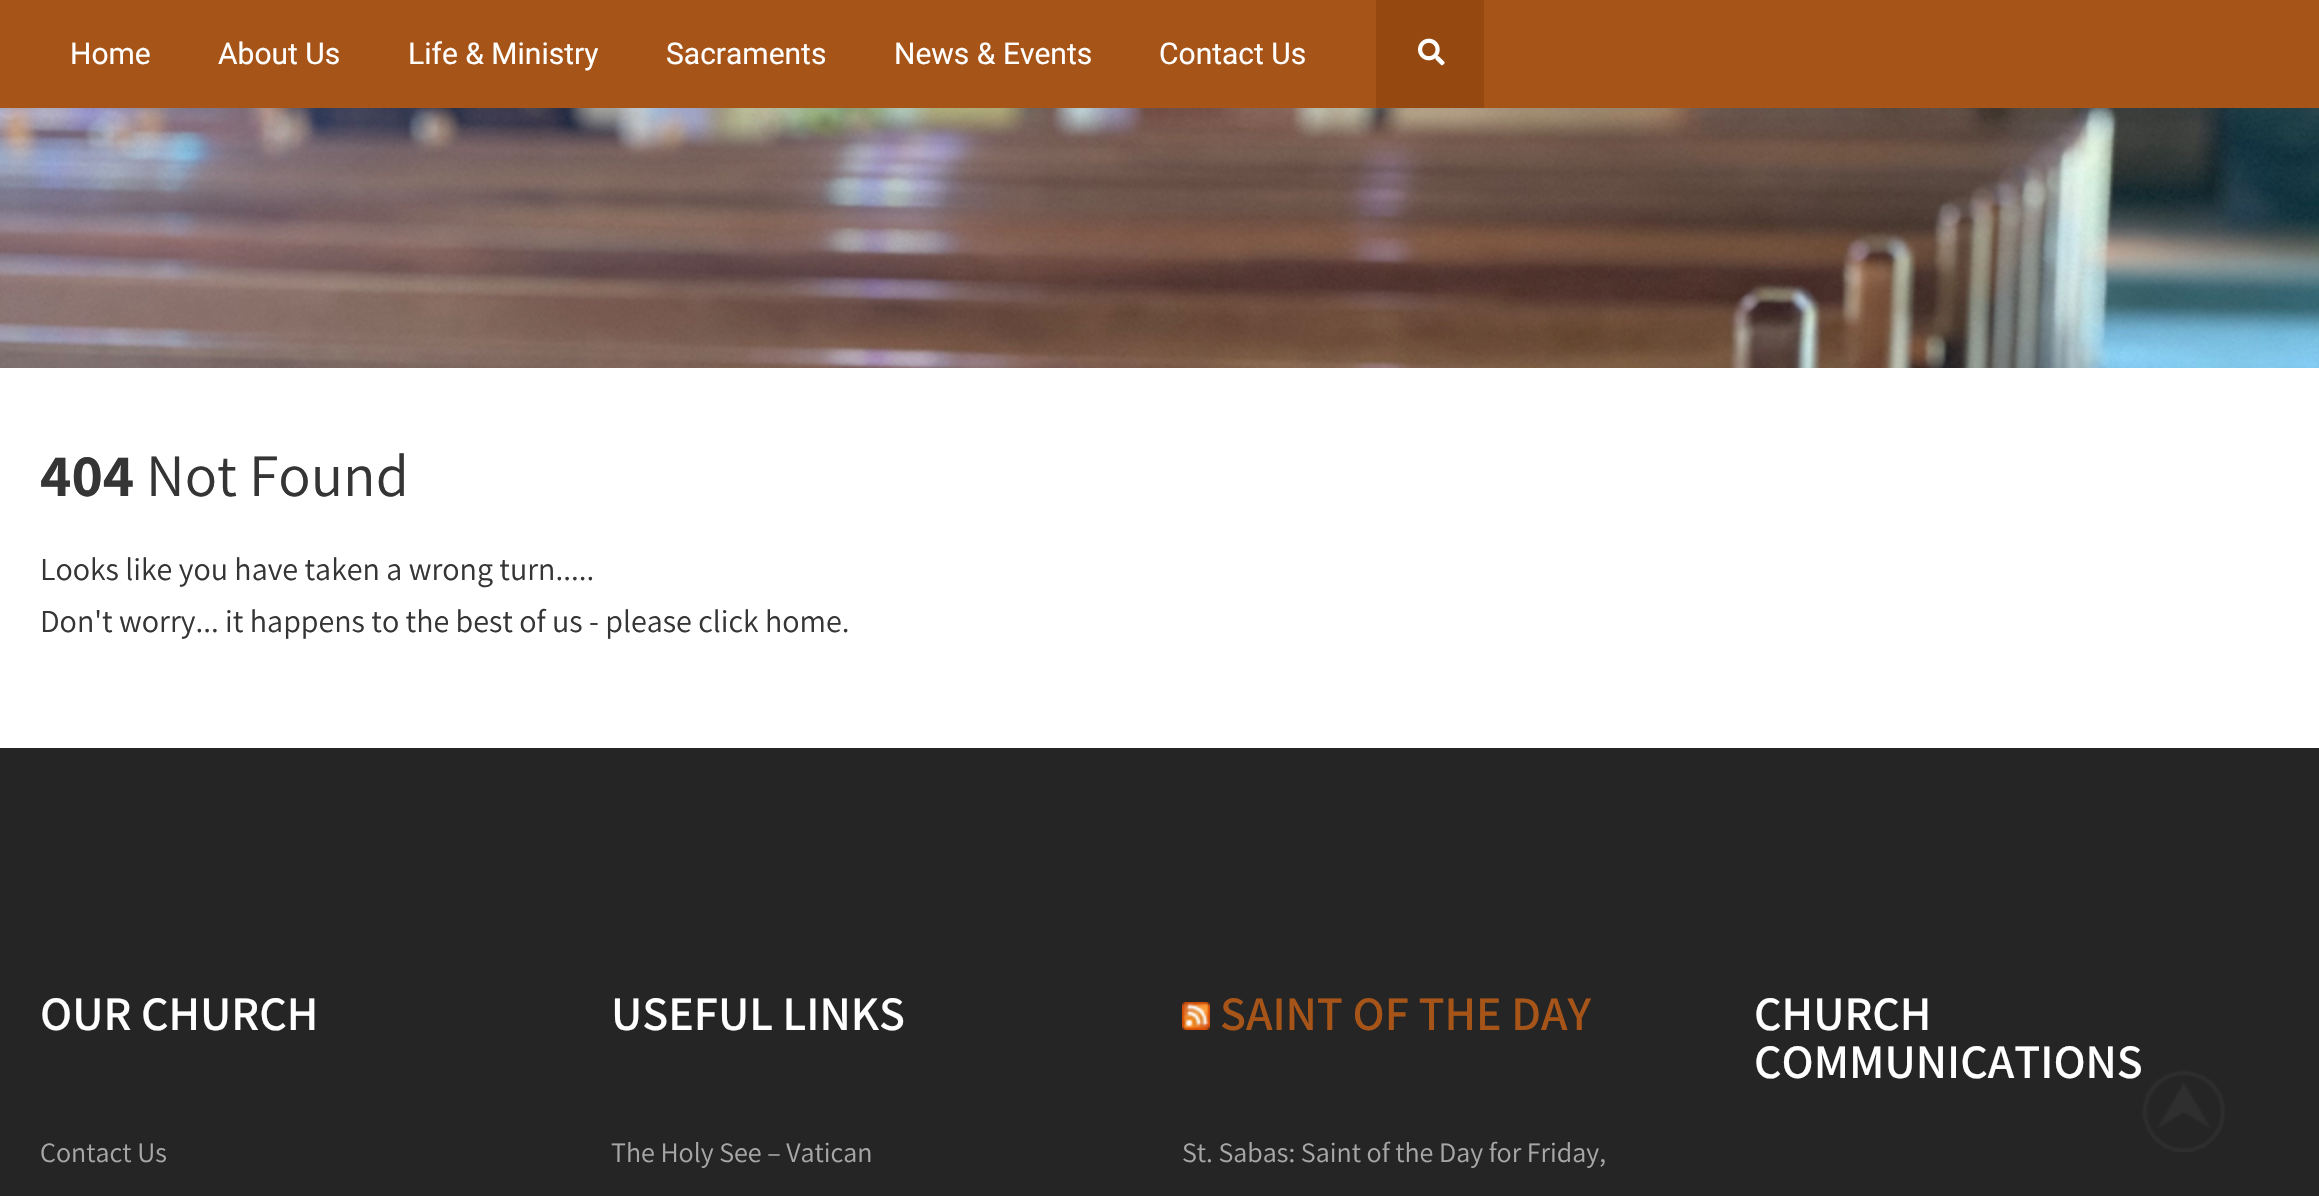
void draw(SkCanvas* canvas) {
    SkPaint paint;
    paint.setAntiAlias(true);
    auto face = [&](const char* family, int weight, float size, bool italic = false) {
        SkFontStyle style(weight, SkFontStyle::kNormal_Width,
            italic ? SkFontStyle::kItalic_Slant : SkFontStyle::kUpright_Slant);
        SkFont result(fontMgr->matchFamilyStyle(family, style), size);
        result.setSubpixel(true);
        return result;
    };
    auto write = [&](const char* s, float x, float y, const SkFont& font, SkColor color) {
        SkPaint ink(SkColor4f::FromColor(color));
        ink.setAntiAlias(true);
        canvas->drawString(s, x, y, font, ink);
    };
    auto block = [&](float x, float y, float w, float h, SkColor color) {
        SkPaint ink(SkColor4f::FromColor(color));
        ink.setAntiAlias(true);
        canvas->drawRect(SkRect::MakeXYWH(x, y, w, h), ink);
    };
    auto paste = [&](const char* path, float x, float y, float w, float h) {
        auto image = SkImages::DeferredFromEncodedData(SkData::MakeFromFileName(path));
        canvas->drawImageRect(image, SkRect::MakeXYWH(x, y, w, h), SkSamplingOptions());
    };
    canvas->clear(SK_ColorWHITE);
    block(0, 0, 2319, 108, SkColorSetRGB(166, 84, 24));
    auto kFont1 = face("Roboto", 400, 30);
    write("Home", 70, 64, kFont1, SK_ColorWHITE);
    write("About Us", 218, 64, kFont1, SK_ColorWHITE);
    write("Life & Ministry", 408, 64, kFont1, SK_ColorWHITE);
    write("Sacraments", 666, 64, kFont1, SK_ColorWHITE);
    write("News & Events", 894, 64, kFont1, SK_ColorWHITE);
    write("Contact Us", 1159, 64, kFont1, SK_ColorWHITE);
    block(1376, 0, 108, 108, SkColorSetRGB(149, 72, 16));
    paste("pic1.png", 1418, 38, 27, 28);
    paste("pic2.png", 0, 108, 2319, 260);
    auto kFont2 = face("Assistant", 700, 60);
    write("404", 40, 496, kFont2, SkColorSetRGB(53, 53, 53));
    auto kFont3 = face("Assistant", 200, 60);
    write("Not Found", 146, 496, kFont3, SkColorSetRGB(53, 53, 53));
    auto kFont4 = face("Assistant", 200, 32);
    write("Looks like you have taken a wrong turn.....", 40, 580, kFont4, SkColorSetRGB(53, 53, 53));
    write("Don't worry... it happens to the best of us - please click home.", 40, 632, kFont4, SkColorSetRGB(53, 53, 53));
    block(0, 748, 2319, 448, SkColorSetRGB(37, 37, 37));
    auto kFont5 = face("Assistant", 600, 48);
    write("OUR CHURCH", 40, 1030, kFont5, SK_ColorWHITE);
    auto kFont6 = face("Assistant", 200, 28);
    write("Contact Us", 40, 1162, kFont6, SkColorSetRGB(167, 167, 167));
    write("USEFUL LINKS", 611, 1030, kFont5, SK_ColorWHITE);
    write("The Holy See – Vatican", 611, 1162, kFont6, SkColorSetRGB(167, 167, 167));
    paste("pic3.png", 1182, 1002, 28, 28);
    write("SAINT OF THE DAY", 1220, 1030, kFont5, SkColorSetRGB(166, 84, 24));
    write("St. Sabas: Saint of the Day for Friday,", 1182, 1162, kFont6, SkColorSetRGB(167, 167, 167));
    write("CHURCH", 1754, 1030, kFont5, SK_ColorWHITE);
    write("COMMUNICATIONS", 1754, 1078, kFont5, SK_ColorWHITE);
    paste("pic4.png", 2142, 1070, 83, 82);
}
